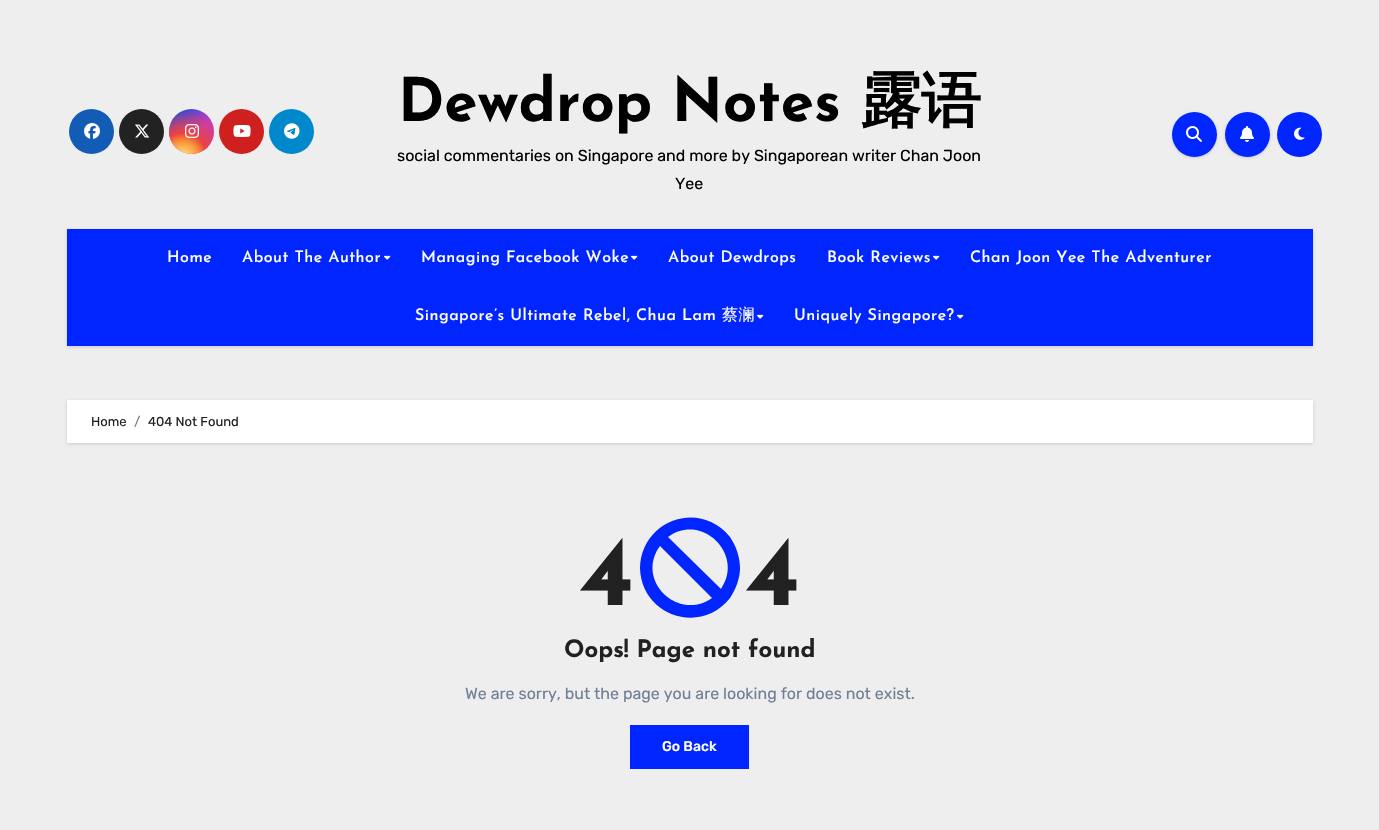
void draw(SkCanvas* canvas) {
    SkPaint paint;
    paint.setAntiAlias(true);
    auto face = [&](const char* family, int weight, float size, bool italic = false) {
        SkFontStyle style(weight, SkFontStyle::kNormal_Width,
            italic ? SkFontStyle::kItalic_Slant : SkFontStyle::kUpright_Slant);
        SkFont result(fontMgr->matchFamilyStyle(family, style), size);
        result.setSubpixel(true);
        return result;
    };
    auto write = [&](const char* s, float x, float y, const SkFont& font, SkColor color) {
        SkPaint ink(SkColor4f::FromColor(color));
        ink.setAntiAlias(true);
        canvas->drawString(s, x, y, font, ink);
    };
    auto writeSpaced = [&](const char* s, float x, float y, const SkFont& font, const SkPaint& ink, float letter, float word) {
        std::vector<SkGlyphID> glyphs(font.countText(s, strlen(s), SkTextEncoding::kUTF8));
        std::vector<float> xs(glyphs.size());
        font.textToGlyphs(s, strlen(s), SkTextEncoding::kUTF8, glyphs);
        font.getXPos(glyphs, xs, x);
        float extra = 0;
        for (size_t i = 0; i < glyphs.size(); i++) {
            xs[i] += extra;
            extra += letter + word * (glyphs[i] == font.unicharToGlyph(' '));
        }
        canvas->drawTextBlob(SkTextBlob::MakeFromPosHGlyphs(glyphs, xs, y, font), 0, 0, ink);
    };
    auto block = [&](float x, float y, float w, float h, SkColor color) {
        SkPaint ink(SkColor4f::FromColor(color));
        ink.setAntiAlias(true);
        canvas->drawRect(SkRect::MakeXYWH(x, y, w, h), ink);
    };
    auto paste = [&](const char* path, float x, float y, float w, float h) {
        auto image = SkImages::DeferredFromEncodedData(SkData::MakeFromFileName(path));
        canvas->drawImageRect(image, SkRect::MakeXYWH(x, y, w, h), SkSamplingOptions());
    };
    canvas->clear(SkColorSetRGB(238, 238, 238));
    paint.setColor(SkColorSetRGB(19, 92, 182));
    canvas->drawCircle(91.5f, 131.5f, 22.5f, paint);
    paste("pic1.png", 84, 123, 16, 16);
    paint.setColor(SkColorSetRGB(34, 34, 34));
    canvas->drawCircle(141.5f, 131.5f, 22.5f, paint);
    paste("pic2.png", 135, 124, 15, 14);
    {
        const SkColor colors[] = {SkColorSetRGB(35, 75, 215), SkColorSetRGB(195, 60, 190)};
        const float stops[] = {0.12f, 0.58f};
        const SkPoint ends[] = {{169, 109}, {214, 154}};
        paint.setShader(SkGradientShader::MakeLinear(ends, colors, stops, 2, SkTileMode::kClamp));
        paint.setAlpha(255);
    }
    canvas->drawCircle(191.5f, 131.5f, 22.5f, paint);
    {
        const SkColor colors[] = {SkColorSetRGB(255, 225, 125), SkColorSetRGB(255, 205, 105), SkColorSetRGB(250, 145, 55), SkColorSetRGB(235, 65, 65), SkColorSetARGB(0, 235, 65, 65)};
        const float stops[] = {0, 0.1f, 0.28f, 0.42f, 0.82f};
        paint.setShader(SkGradientShader::MakeRadial({183, 157}, 57, colors, stops, 5, SkTileMode::kClamp));
        paint.setAlpha(255);
    }
    canvas->drawCircle(191.5f, 131.5f, 22.5f, paint);
    paste("pic3.png", 185, 124, 14, 14);
    paint.setShader(nullptr);
    paint.setColor(SkColorSetRGB(205, 32, 31));
    canvas->drawCircle(241.5f, 131.5f, 22.5f, paint);
    paste("pic4.png", 233, 125, 18, 12);
    paint.setColor(SkColorSetRGB(0, 136, 204));
    canvas->drawCircle(291.5f, 131.5f, 22.5f, paint);
    paste("pic5.png", 284, 123, 16, 16);
    auto kFont1 = face("Josefin Sans", 700, 60);
    write("Dewdrop Notes", 398, 121, kFont1, SK_ColorBLACK);
    auto kFont2 = face("WenQuanYi Zen Hei", 700, 60);
    write("露语", 861, 121, kFont2, SK_ColorBLACK);
    auto kFont3 = face("Rubik", 300, 16);
    write("social commentaries on Singapore and more by Singaporean writer Chan Joon", 397, 161, kFont3, SK_ColorBLACK);
    write("Yee", 675, 189, kFont3, SK_ColorBLACK);
    paint.setColor(SkColorSetARGB(38, 0, 0, 0));
    paint.setMaskFilter(SkMaskFilter::MakeBlur(kNormal_SkBlurStyle, 1.5f));
    canvas->drawRoundRect(SkRect::MakeXYWH(1172, 113, 45, 45), 22.5f, 22.5f, paint);
    paint.setMaskFilter(nullptr);
    paint.setColor(SkColorSetRGB(0, 37, 255));
    canvas->drawCircle(1194.5f, 134.5f, 22.5f, paint);
    paste("pic6.png", 1186, 126, 16, 16);
    paint.setColor(SkColorSetARGB(38, 0, 0, 0));
    paint.setMaskFilter(SkMaskFilter::MakeBlur(kNormal_SkBlurStyle, 1.5f));
    canvas->drawRoundRect(SkRect::MakeXYWH(1225, 113, 45, 45), 22.5f, 22.5f, paint);
    paint.setMaskFilter(nullptr);
    paint.setColor(SkColorSetRGB(0, 37, 255));
    canvas->drawCircle(1247.5f, 134.5f, 22.5f, paint);
    paste("pic7.png", 1240, 126, 14, 16);
    canvas->drawCircle(1299.5f, 134.5f, 22.5f, paint);
    paste("pic8.png", 1294, 127, 11, 13);
    paint.setColor(SkColorSetARGB(38, 0, 0, 0));
    paint.setMaskFilter(SkMaskFilter::MakeBlur(kNormal_SkBlurStyle, 1.5f));
    canvas->drawRect(SkRect::MakeXYWH(67, 230, 1246, 117), paint);
    paint.setMaskFilter(nullptr);
    block(67, 229, 1246, 117, SkColorSetRGB(0, 37, 255));
    auto kFont4 = face("Josefin Sans", 500, 16);
    paint.setColor(SK_ColorWHITE);
    writeSpaced("Home", 167, 262, kFont4, paint, 0.5f, 0);
    writeSpaced("About The Author", 242, 262, kFont4, paint, 0.5f, 0);
    paste("pic9.png", 384, 255, 7, 5);
    writeSpaced("Managing Facebook Woke", 421, 262, kFont4, paint, 0.5f, 0);
    paste("pic9.png", 631, 255, 7, 5);
    writeSpaced("About Dewdrops", 668, 262, kFont4, paint, 0.5f, 0);
    writeSpaced("Book Reviews", 827, 262, kFont4, paint, 0.5f, 0);
    paste("pic9.png", 933, 255, 7, 5);
    writeSpaced("Chan Joon Yee The Adventurer", 970, 262, kFont4, paint, 0.5f, 0);
    writeSpaced("Singapore’s Ultimate Rebel, Chua Lam", 415, 320, kFont4, paint, 0.5f, 0);
    auto kFont5 = face("WenQuanYi Zen Hei", 500, 16);
    writeSpaced("蔡澜", 722, 320, kFont5, paint, 0.5f, 0);
    paste("pic9.png", 757, 314, 7, 5);
    writeSpaced("Uniquely Singapore?", 794, 320, kFont4, paint, 0.5f, 0);
    paste("pic9.png", 957, 314, 7, 5);
    paint.setColor(SkColorSetARGB(38, 0, 0, 0));
    paint.setMaskFilter(SkMaskFilter::MakeBlur(kNormal_SkBlurStyle, 1.5f));
    canvas->drawRect(SkRect::MakeXYWH(67, 401, 1246, 43), paint);
    paint.setMaskFilter(nullptr);
    block(67, 400, 1246, 43, SK_ColorWHITE);
    auto kFont6 = face("Rubik", 300, 13);
    write("Home", 91, 426, kFont6, SkColorSetRGB(33, 33, 33));
    write("/", 134, 426, kFont6, SkColorSetRGB(108, 117, 125));
    write("404 Not Found", 148, 426, kFont6, SkColorSetRGB(33, 33, 33));
    auto kFont7 = face("Josefin Sans", 700, 100);
    write("4", 579, 605, kFont7, SkColorSetRGB(33, 33, 33));
    paint.setColor(SkColorSetRGB(0, 37, 255));
    canvas->drawPath(SkPathBuilder().moveTo(712, 598).lineTo(660, 546).cubicTo(635, 580, 678, 622, 712, 598).close().moveTo(721, 589).cubicTo(745, 555, 702, 512, 668, 537).close().moveTo(640, 568).cubicTo(641, 520, 700, 499, 730, 537).cubicTo(736, 546, 740, 557, 740, 568).cubicTo(740, 578, 736, 589, 730, 598).cubicTo(700, 636, 641, 615, 640, 568).close().detach(), paint);
    write("4", 745, 605, kFont7, SkColorSetRGB(33, 33, 33));
    auto kFont8 = face("Josefin Sans", 700, 24);
    write("Oops! Page not found", 564, 657, kFont8, SkColorSetRGB(33, 33, 33));
    write("We are sorry, but the page you are looking for does not exist.", 465, 699, kFont3, SkColorSetRGB(113, 128, 150));
    block(630, 725, 119, 44, SkColorSetRGB(0, 37, 255));
    auto kFont9 = face("Rubik", 500, 14);
    write("Go Back", 662, 751, kFont9, SK_ColorWHITE);
}
